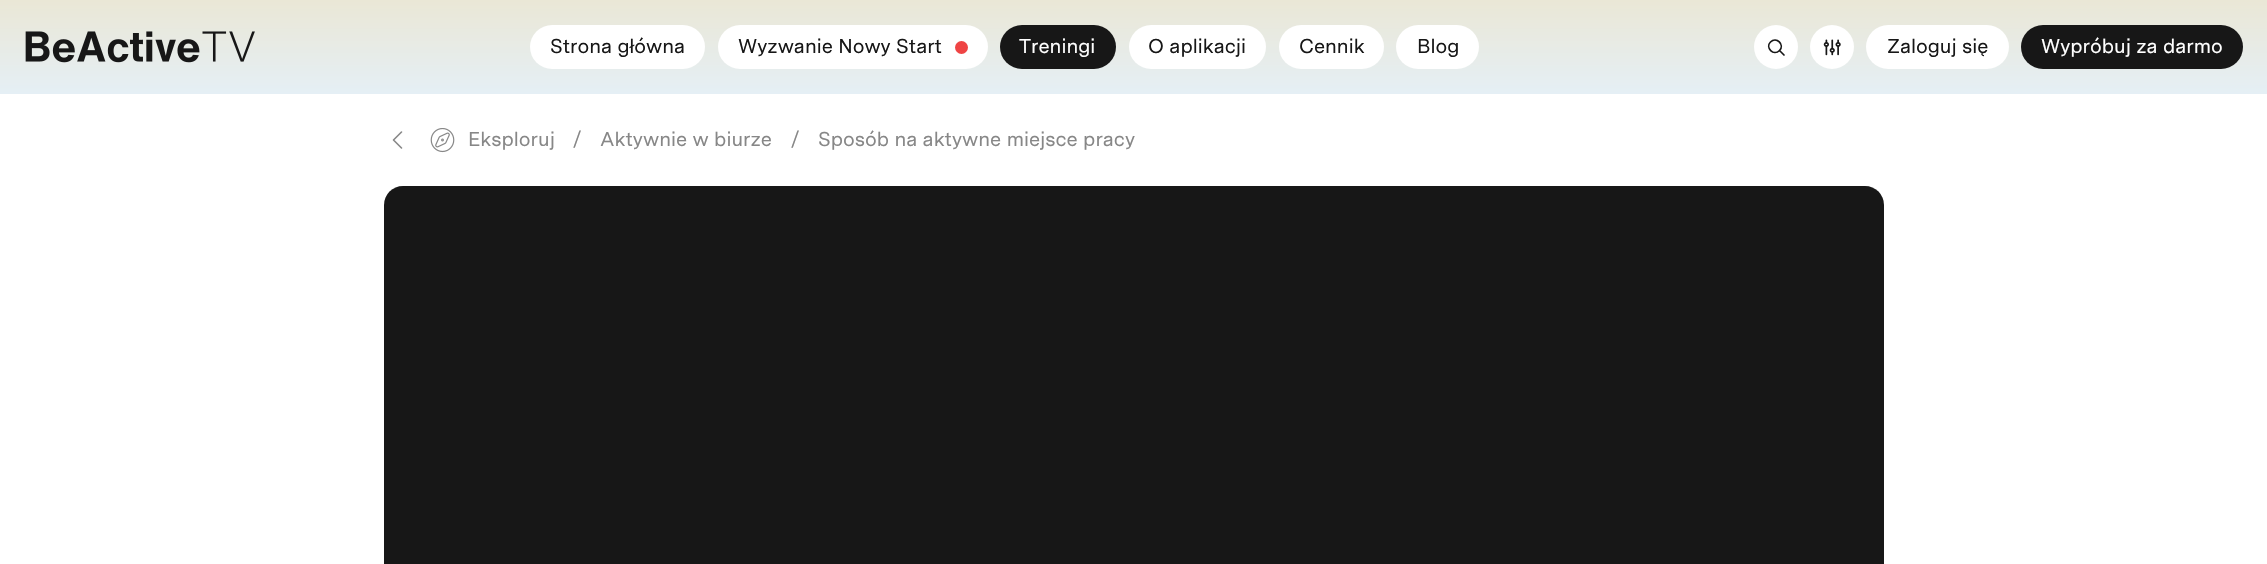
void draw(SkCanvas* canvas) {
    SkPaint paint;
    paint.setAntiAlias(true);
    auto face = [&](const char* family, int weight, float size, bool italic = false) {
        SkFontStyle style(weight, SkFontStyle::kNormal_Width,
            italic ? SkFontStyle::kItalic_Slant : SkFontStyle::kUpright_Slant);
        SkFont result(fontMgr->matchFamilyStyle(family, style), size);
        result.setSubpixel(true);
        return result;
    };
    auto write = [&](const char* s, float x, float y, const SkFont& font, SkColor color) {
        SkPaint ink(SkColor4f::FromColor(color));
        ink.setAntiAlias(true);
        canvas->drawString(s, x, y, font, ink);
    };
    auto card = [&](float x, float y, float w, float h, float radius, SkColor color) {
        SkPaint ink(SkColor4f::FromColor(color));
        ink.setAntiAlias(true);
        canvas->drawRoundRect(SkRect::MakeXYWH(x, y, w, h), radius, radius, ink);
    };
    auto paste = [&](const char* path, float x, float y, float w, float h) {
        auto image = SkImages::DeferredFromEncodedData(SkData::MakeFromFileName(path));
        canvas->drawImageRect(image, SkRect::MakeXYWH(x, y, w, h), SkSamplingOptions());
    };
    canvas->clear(SK_ColorWHITE);
    {
        const SkColor colors[] = {SkColorSetRGB(234, 231, 214), SkColorSetRGB(229, 239, 245)};
        const float stops[] = {0, 1};
        const SkPoint ends[] = {{1134, 0}, {1134, 94}};
        paint.setShader(SkGradientShader::MakeLinear(ends, colors, stops, 2, SkTileMode::kClamp));
        paint.setAlpha(255);
    }
    canvas->drawRect(SkRect::MakeXYWH(0, 0, 2267, 94), paint);
    paste("pic1.png", 25, 31, 230, 32);
    card(530, 25, 175, 44, 22, SK_ColorWHITE);
    auto kFont1 = face("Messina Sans", 400, 20);
    write("Strona główna", 550, 53, kFont1, SkColorSetRGB(23, 23, 23));
    card(718, 25, 270, 44, 22, SK_ColorWHITE);
    write("Wyzwanie Nowy Start", 738, 53, kFont1, SkColorSetRGB(23, 23, 23));
    paint.setShader(nullptr);
    paint.setColor(SkColorSetRGB(239, 68, 68));
    canvas->drawCircle(961.5f, 47.5f, 6.5f, paint);
    card(1000, 25, 116, 44, 22, SkColorSetRGB(23, 23, 23));
    write("Treningi", 1019, 53, kFont1, SK_ColorWHITE);
    card(1129, 25, 137, 44, 22, SK_ColorWHITE);
    write("O aplikacji", 1148, 53, kFont1, SkColorSetRGB(23, 23, 23));
    card(1279, 25, 105, 44, 22, SK_ColorWHITE);
    write("Cennik", 1299, 53, kFont1, SkColorSetRGB(23, 23, 23));
    card(1396, 25, 83, 44, 22, SK_ColorWHITE);
    write("Blog", 1417, 53, kFont1, SkColorSetRGB(23, 23, 23));
    paint.setColor(SK_ColorWHITE);
    canvas->drawCircle(1776, 47, 22, paint);
    paint.setStyle(SkPaint::kStroke_Style);
    paint.setStrokeWidth(1.7f);
    paint.setStrokeCap(SkPaint::kRound_Cap);
    paint.setStrokeJoin(SkPaint::kRound_Join);
    paint.setColor(SkColorSetRGB(23, 23, 23));
    canvas->drawPath(SkPathBuilder().moveTo(1784, 55).lineTo(1779.5f, 50.5f).moveTo(1779.5f, 50.5f).cubicTo(1785, 45, 1776.5f, 36, 1770.5f, 42).cubicTo(1765, 47.5f, 1773.5f, 56.5f, 1779.5f, 50.5f).close().detach(), paint);
    paint.setStyle(SkPaint::kFill_Style);
    paint.setColor(SK_ColorWHITE);
    canvas->drawCircle(1832, 47, 22, paint);
    paste("pic2.png", 1823, 39, 18, 17);
    card(1866, 25, 143, 44, 22, SK_ColorWHITE);
    write("Zaloguj się", 1887, 53, kFont1, SkColorSetRGB(23, 23, 23));
    card(2021, 25, 222, 44, 22, SkColorSetRGB(23, 23, 23));
    write("Wypróbuj za darmo", 2041, 53, kFont1, SK_ColorWHITE);
    paint.setStyle(SkPaint::kStroke_Style);
    paint.setStrokeWidth(1.6f);
    paint.setColor(SkColorSetRGB(135, 135, 135));
    canvas->drawPath(SkPathBuilder().moveTo(401.5f, 148).lineTo(393.5f, 140).lineTo(401.5f, 132).detach(), paint);
    paste("pic3.png", 430, 128, 25, 25);
    write("Eksploruj", 468, 146, kFont1, SkColorSetRGB(135, 135, 135));
    write("/", 573, 146, kFont1, SkColorSetRGB(135, 135, 135));
    write("Aktywnie w biurze", 600, 146, kFont1, SkColorSetRGB(135, 135, 135));
    write("/", 791, 146, kFont1, SkColorSetRGB(135, 135, 135));
    write("Sposób na aktywne miejsce pracy", 818, 146, kFont1, SkColorSetRGB(135, 135, 135));
    card(384, 186, 1500, 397, 19, SkColorSetRGB(23, 23, 23));
    card(384, 186, 1500, 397, 19, SkColorSetARGB(26, 23, 23, 23));
}
